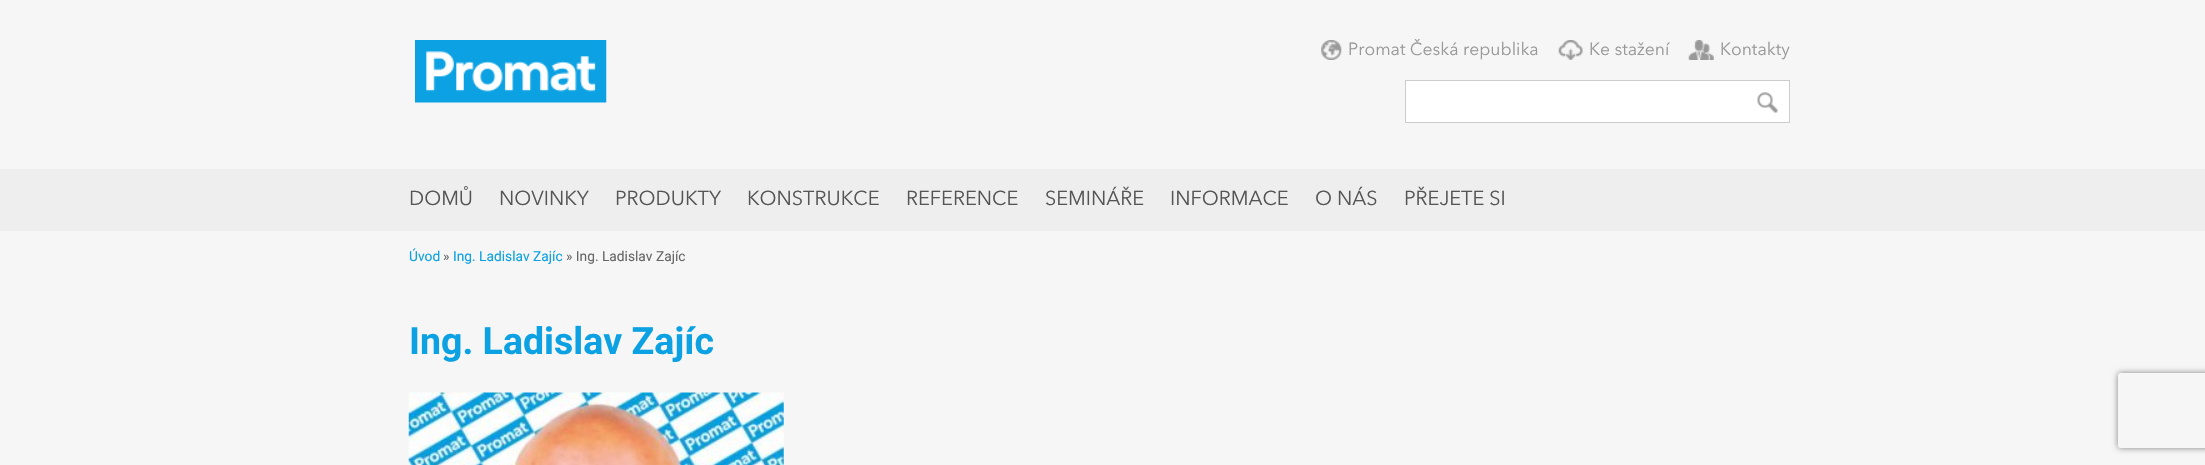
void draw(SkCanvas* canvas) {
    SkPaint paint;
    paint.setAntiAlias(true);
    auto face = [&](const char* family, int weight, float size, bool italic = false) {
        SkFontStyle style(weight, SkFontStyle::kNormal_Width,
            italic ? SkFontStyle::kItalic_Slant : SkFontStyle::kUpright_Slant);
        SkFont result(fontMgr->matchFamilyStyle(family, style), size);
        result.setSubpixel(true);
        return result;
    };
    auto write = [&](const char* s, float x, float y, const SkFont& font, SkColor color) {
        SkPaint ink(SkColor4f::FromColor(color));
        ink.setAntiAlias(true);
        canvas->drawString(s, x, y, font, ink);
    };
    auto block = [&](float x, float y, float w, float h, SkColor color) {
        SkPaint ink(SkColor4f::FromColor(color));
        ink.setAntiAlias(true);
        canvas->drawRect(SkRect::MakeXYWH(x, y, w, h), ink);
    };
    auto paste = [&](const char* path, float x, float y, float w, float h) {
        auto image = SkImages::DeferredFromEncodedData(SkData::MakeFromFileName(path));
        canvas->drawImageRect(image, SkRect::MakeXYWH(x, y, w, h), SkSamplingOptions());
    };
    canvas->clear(SkColorSetRGB(246, 246, 246));
    paste("pic1.png", 415, 40, 192, 63);
    paste("pic2.png", 1321, 40, 21, 20);
    auto kFont1 = face("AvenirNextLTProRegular", 400, 17.5f);
    write("Promat Česká republika", 1348, 55, kFont1, SkColorSetRGB(153, 153, 153));
    paste("pic3.png", 1558, 40, 25, 20);
    write("Ke stažení", 1589, 55, kFont1, SkColorSetRGB(153, 153, 153));
    paste("pic4.png", 1688, 40, 26, 20);
    write("Kontakty", 1720, 55, kFont1, SkColorSetRGB(153, 153, 153));
    paint.setColor(SK_ColorWHITE);
    canvas->drawRect(SkRect::MakeXYWH(1405.5f, 80.5f, 384, 42), paint);
    paint.setStyle(SkPaint::kStroke_Style);
    paint.setStrokeWidth(1);
    paint.setColor(SkColorSetRGB(204, 204, 204));
    canvas->drawRect(SkRect::MakeXYWH(1405.5f, 80.5f, 384, 42), paint);
    paste("pic5.png", 1757, 92, 21, 21);
    block(0, 169, 2205, 62, SkColorSetRGB(238, 238, 238));
    auto kFont2 = face("AvenirNextLTProRegular", 400, 20);
    write("DOMŮ", 409, 205, kFont2, SkColorSetRGB(85, 85, 85));
    write("NOVINKY", 499, 205, kFont2, SkColorSetRGB(85, 85, 85));
    write("PRODUKTY", 615, 205, kFont2, SkColorSetRGB(85, 85, 85));
    write("KONSTRUKCE", 747, 205, kFont2, SkColorSetRGB(85, 85, 85));
    write("REFERENCE", 906, 205, kFont2, SkColorSetRGB(85, 85, 85));
    write("SEMINÁŘE", 1045, 205, kFont2, SkColorSetRGB(85, 85, 85));
    write("INFORMACE", 1170, 205, kFont2, SkColorSetRGB(85, 85, 85));
    write("O NÁS", 1315, 205, kFont2, SkColorSetRGB(85, 85, 85));
    write("PŘEJETE SI", 1404, 205, kFont2, SkColorSetRGB(85, 85, 85));
    auto kFont3 = face("Roboto", 400, 13.75f);
    write("Úvod", 409, 261, kFont3, SkColorSetRGB(11, 161, 226));
    write("»", 443, 261, kFont3, SkColorSetRGB(102, 102, 102));
    write("Ing. Ladislav Zajíc", 453, 261, kFont3, SkColorSetRGB(11, 161, 226));
    write("» Ing. Ladislav Zajíc", 566, 261, kFont3, SkColorSetRGB(102, 102, 102));
    auto kFont4 = face("Roboto", 700, 37.5f);
    write("Ing. Ladislav Zajíc", 409, 354, kFont4, SkColorSetRGB(11, 161, 226));
    paste("pic6.png", 408, 392, 376, 73);
    canvas->save();
    canvas->clipPath(SkPathBuilder(SkPathFillType::kEvenOdd).moveTo(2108, 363).lineTo(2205, 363).lineTo(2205, 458).lineTo(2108, 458).close().moveTo(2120.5f, 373).lineTo(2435.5f, 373).cubicTo(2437, 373, 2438, 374, 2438, 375.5f).lineTo(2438, 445.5f).cubicTo(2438, 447, 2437, 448, 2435.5f, 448).lineTo(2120.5f, 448).cubicTo(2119, 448, 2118, 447, 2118, 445.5f).lineTo(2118, 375.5f).cubicTo(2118, 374, 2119, 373, 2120.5f, 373).close().detach(), true);
    paint.setStyle(SkPaint::kFill_Style);
    paint.setColor(SkColorSetRGB(128, 128, 128));
    paint.setMaskFilter(SkMaskFilter::MakeBlur(kNormal_SkBlurStyle, 3));
    canvas->drawRoundRect(SkRect::MakeXYWH(2118, 373, 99, 75), 2.5f, 2.5f, paint);
    paint.setMaskFilter(nullptr);
    canvas->restore();
}
